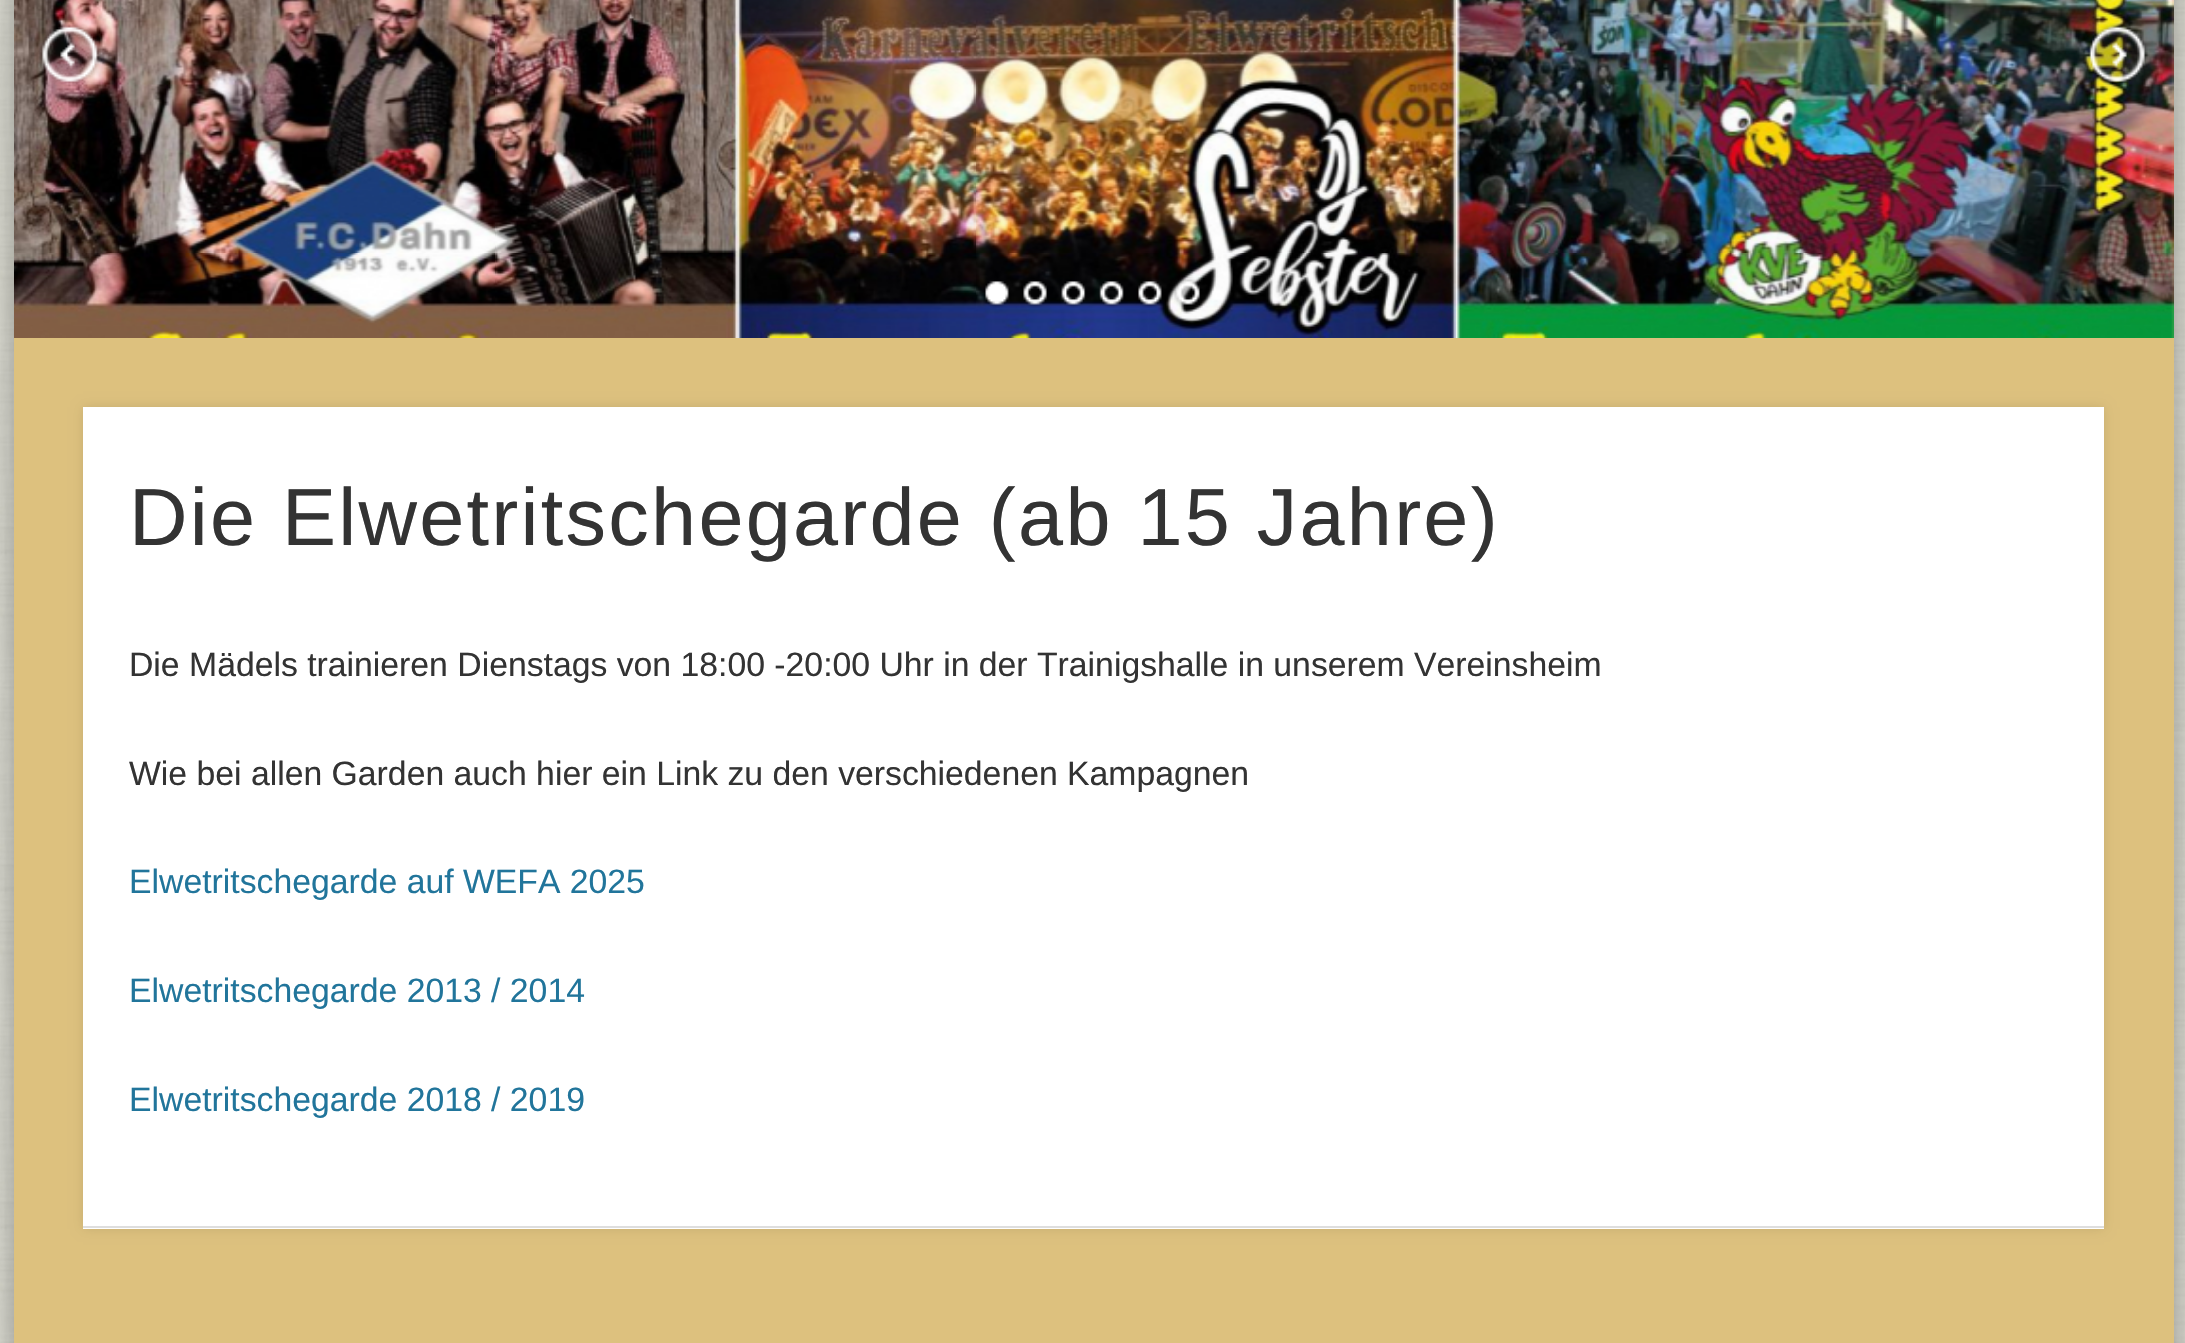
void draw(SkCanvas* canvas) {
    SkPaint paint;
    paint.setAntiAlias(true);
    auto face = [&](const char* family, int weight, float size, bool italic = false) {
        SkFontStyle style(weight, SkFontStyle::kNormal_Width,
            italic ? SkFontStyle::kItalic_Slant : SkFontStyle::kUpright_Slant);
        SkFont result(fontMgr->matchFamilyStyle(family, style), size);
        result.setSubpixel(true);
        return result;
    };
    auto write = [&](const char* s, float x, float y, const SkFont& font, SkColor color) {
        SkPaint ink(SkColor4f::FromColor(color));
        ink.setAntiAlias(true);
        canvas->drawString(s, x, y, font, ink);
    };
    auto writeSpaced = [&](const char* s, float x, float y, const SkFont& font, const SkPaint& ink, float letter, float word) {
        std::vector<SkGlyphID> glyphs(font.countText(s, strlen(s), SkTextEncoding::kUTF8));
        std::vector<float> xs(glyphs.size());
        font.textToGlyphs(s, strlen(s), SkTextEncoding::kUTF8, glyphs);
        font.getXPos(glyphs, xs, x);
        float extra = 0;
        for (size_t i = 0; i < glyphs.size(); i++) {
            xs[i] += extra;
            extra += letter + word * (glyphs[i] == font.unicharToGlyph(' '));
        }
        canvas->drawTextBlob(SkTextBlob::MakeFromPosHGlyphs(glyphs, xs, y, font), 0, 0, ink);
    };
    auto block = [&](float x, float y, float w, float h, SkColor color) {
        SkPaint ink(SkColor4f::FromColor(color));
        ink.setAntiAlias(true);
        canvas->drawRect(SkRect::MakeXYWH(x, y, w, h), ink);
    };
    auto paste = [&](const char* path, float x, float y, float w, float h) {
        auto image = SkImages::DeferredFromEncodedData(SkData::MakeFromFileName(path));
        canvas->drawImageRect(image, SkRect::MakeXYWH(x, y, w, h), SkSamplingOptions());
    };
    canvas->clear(SK_ColorWHITE);
    paste("pic1.png", 0, 0, 2185, 1343);
    paint.setColor(SkColorSetARGB(102, 0, 0, 0));
    paint.setMaskFilter(SkMaskFilter::MakeBlur(kNormal_SkBlurStyle, 20));
    canvas->drawRect(SkRect::MakeXYWH(14, -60, 2160, 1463), paint);
    paint.setMaskFilter(nullptr);
    block(14, 0, 2160, 1343, SkColorSetRGB(221, 193, 126));
    paste("pic2.png", 14, 0, 2160, 338);
    paste("pic3.png", 39, 23, 62, 63);
    paste("pic4.png", 2086, 23, 62, 63);
    paste("pic5.png", 985, 281, 24, 27);
    paste("pic6.png", 1023, 281, 24, 27);
    paste("pic7.png", 1061, 281, 25, 27);
    paste("pic8.png", 1099, 281, 25, 27);
    paste("pic9.png", 1138, 281, 24, 27);
    paste("pic10.png", 1172, 277, 28, 30);
    paint.setColor(SkColorSetARGB(26, 0, 0, 0));
    paint.setMaskFilter(SkMaskFilter::MakeBlur(kNormal_SkBlurStyle, 5.5f));
    canvas->drawRect(SkRect::MakeXYWH(83, 407, 2021, 822), paint);
    paint.setMaskFilter(nullptr);
    block(83, 407, 2021, 822, SK_ColorWHITE);
    block(83, 1226, 2021, 2, SkColorSetRGB(222, 222, 222));
    auto kFont1 = face("Liberation Sans", 400, 81);
    paint.setColor(SkColorSetRGB(51, 51, 51));
    writeSpaced("Die Elwetritschegarde (ab 15 Jahre)", 129, 545, kFont1, paint, 2.25f, 0);
    auto kFont2 = face("Liberation Sans", 400, 33.75f);
    write("Die Mädels trainieren Dienstags von 18:00 -20:00 Uhr in der Trainigshalle in unserem Vereinsheim", 129, 676, kFont2, SkColorSetRGB(51, 51, 51));
    write("Wie bei allen Garden auch hier ein Link zu den verschiedenen Kampagnen", 129, 785, kFont2, SkColorSetRGB(51, 51, 51));
    write("Elwetritschegarde auf WEFA 2025", 129, 893, kFont2, SkColorSetRGB(33, 117, 155));
    write("Elwetritschegarde 2013 / 2014", 129, 1002, kFont2, SkColorSetRGB(33, 117, 155));
    write("Elwetritschegarde 2018 / 2019", 129, 1111, kFont2, SkColorSetRGB(33, 117, 155));
}
